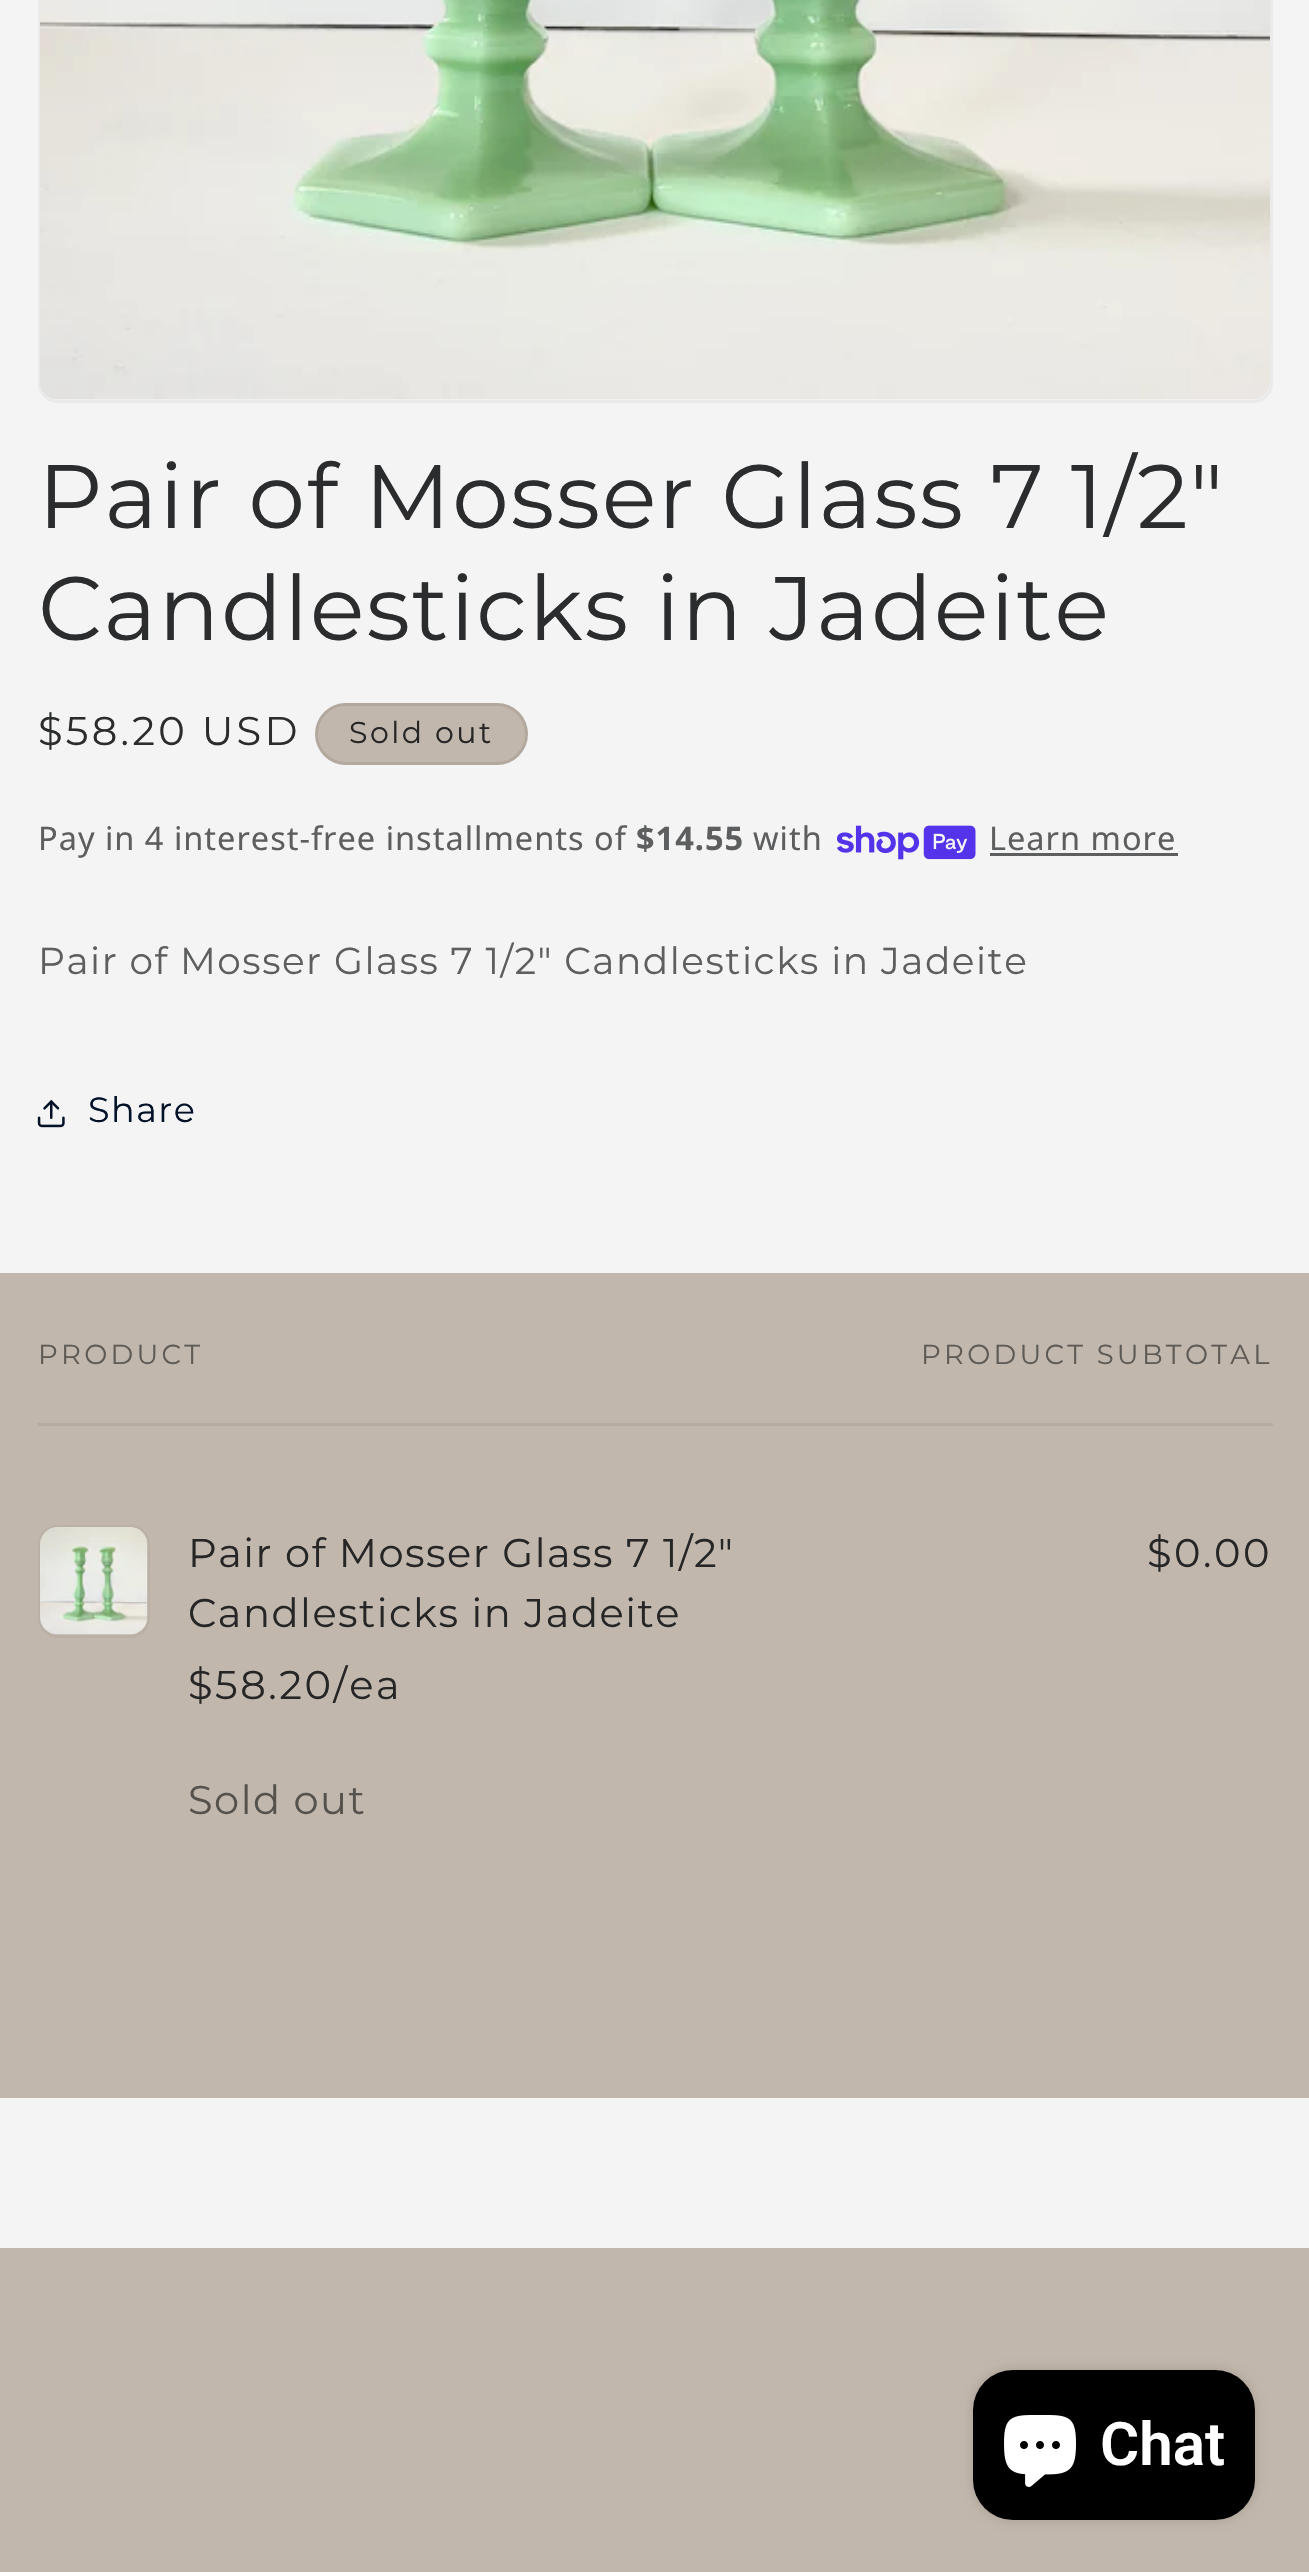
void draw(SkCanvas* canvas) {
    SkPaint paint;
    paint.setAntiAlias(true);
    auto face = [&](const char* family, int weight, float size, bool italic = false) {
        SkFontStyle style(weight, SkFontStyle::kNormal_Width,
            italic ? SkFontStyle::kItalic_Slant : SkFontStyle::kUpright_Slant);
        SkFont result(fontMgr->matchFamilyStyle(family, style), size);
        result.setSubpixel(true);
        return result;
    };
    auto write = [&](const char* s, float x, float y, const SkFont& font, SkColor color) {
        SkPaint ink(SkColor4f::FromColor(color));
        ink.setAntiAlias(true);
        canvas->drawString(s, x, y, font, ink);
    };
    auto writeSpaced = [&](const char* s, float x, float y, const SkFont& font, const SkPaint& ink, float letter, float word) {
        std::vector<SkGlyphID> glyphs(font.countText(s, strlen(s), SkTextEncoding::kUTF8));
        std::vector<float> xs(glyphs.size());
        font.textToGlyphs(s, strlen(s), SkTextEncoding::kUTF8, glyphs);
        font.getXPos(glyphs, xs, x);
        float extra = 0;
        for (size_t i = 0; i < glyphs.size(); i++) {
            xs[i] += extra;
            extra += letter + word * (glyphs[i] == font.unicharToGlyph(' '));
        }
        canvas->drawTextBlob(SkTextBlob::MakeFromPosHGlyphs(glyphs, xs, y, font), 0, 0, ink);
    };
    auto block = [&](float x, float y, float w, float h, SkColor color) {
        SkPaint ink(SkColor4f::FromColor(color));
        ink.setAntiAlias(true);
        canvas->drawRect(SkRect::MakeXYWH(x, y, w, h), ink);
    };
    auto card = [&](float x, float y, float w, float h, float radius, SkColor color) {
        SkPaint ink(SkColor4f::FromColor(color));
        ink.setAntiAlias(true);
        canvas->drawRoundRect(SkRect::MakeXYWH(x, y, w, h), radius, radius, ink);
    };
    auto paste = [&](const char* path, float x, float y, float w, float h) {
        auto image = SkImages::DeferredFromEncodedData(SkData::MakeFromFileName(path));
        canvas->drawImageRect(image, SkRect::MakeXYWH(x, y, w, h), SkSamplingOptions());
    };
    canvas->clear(SkColorSetRGB(244, 244, 244));
    paint.setStyle(SkPaint::kStroke_Style);
    paint.setStrokeWidth(3);
    paint.setColor(SkColorSetRGB(234, 234, 234));
    canvas->drawRoundRect(SkRect::MakeXYWH(39.5f, -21.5f, 1232, 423), 18.5f, 18.5f, paint);
    paste("pic1.png", 40, 0, 1230, 400);
    auto kFont1 = face("Montserrat", 400, 90);
    paint.setStyle(SkPaint::kFill_Style);
    paint.setColor(SkColorSetRGB(43, 44, 45));
    writeSpaced("Pair of Mosser Glass 7 1/2\"", 38, 528, kFont1, paint, 1.8f, 0);
    writeSpaced("Candlesticks in Jadeite", 38, 640, kFont1, paint, 1.8f, 0);
    auto kFont2 = face("Montserrat", 400, 40);
    writeSpaced("$58.20 USD", 38, 745, kFont2, paint, 3.25f, 0);
    card(315, 703, 213, 62, 31, SkColorSetRGB(194, 183, 172));
    paint.setStyle(SkPaint::kStroke_Style);
    paint.setColor(SkColorSetARGB(26, 38, 38, 38));
    canvas->drawRoundRect(SkRect::MakeXYWH(316.5f, 704.5f, 210, 59), 29.5f, 29.5f, paint);
    auto kFont3 = face("Montserrat", 400, 30);
    paint.setStyle(SkPaint::kFill_Style);
    paint.setColor(SkColorSetRGB(38, 38, 38));
    writeSpaced("Sold out", 349, 743, kFont3, paint, 2.5f, 0);
    auto kFont4 = face("Noto Sans", 400, 32.5f);
    paint.setColor(SkColorSetRGB(93, 94, 95));
    writeSpaced("Pay in 4 interest-free installments of", 38, 850, kFont4, paint, 1, 0);
    auto kFont5 = face("Noto Sans", 700, 32.5f);
    writeSpaced("$14.55", 636, 850, kFont5, paint, 1, 0);
    writeSpaced("with", 753, 850, kFont4, paint, 1, 0);
    paste("pic2.png", 836, 825, 140, 35);
    writeSpaced("Learn more", 989, 850, kFont4, paint, 1, 0);
    block(990, 853, 188, 3, SkColorSetRGB(93, 94, 95));
    auto kFont6 = face("Montserrat", 400, 37.5f);
    writeSpaced("Pair of Mosser Glass 7 1/2\" Candlesticks in Jadeite", 38, 974, kFont6, paint, 1.5f, 0);
    paste("pic3.png", 37, 1100, 28, 28);
    auto kFont7 = face("Montserrat", 400, 35);
    paint.setColor(SkColorSetRGB(0, 17, 40));
    writeSpaced("Share", 88, 1122, kFont7, paint, 1.5f, 0);
    block(0, 1273, 1309, 825, SkColorSetRGB(194, 183, 172));
    block(38, 1423, 1235, 3, SkColorSetRGB(182, 171, 161));
    auto kFont8 = face("Montserrat", 400, 27.5f);
    paint.setColor(SkColorSetRGB(94, 91, 87));
    writeSpaced("PRODUCT", 38, 1364, kFont8, paint, 3.25f, 0);
    writeSpaced("PRODUCT SUBTOTAL", 921, 1364, kFont8, paint, 3.25f, 0);
    paint.setStyle(SkPaint::kStroke_Style);
    paint.setColor(SkColorSetRGB(186, 176, 165));
    canvas->drawRoundRect(SkRect::MakeXYWH(39.5f, 1526.5f, 109, 110), 18.5f, 18.5f, paint);
    paste("pic4.png", 40, 1527, 108, 108);
    paint.setStyle(SkPaint::kFill_Style);
    paint.setColor(SkColorSetRGB(38, 38, 38));
    writeSpaced("Pair of Mosser Glass 7 1/2\"", 188, 1567, kFont2, paint, 1.5f, 0);
    writeSpaced("Candlesticks in Jadeite", 188, 1627, kFont2, paint, 1.5f, 0);
    writeSpaced("$58.20/ea", 188, 1699, kFont2, paint, 2.5f, 0);
    writeSpaced("$0.00", 1147, 1567, kFont2, paint, 2.5f, 0);
    paint.setColor(SkColorSetRGB(85, 82, 78));
    writeSpaced("Sold out", 188, 1814, kFont2, paint, 1.5f, 0);
    block(0, 2248, 1309, 324, SkColorSetRGB(194, 183, 172));
    paint.setColor(SkColorSetARGB(38, 0, 0, 0));
    paint.setMaskFilter(SkMaskFilter::MakeBlur(kNormal_SkBlurStyle, 6));
    canvas->drawRoundRect(SkRect::MakeXYWH(973, 2370, 282, 150), 40, 40, paint);
    paint.setMaskFilter(nullptr);
    card(973, 2370, 282, 150, 40, SK_ColorBLACK);
    paste("pic5.png", 1004, 2415, 72, 72);
    auto kFont9 = face("Roboto", 600, 60);
    write("Chat", 1100, 2465, kFont9, SK_ColorWHITE);
}
